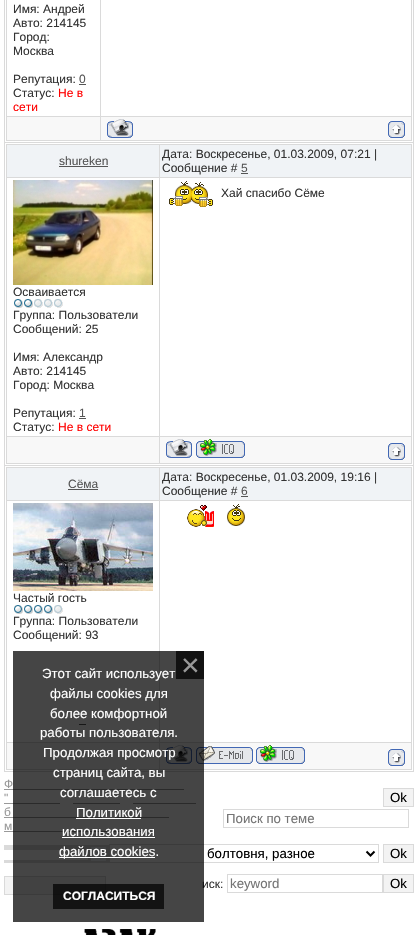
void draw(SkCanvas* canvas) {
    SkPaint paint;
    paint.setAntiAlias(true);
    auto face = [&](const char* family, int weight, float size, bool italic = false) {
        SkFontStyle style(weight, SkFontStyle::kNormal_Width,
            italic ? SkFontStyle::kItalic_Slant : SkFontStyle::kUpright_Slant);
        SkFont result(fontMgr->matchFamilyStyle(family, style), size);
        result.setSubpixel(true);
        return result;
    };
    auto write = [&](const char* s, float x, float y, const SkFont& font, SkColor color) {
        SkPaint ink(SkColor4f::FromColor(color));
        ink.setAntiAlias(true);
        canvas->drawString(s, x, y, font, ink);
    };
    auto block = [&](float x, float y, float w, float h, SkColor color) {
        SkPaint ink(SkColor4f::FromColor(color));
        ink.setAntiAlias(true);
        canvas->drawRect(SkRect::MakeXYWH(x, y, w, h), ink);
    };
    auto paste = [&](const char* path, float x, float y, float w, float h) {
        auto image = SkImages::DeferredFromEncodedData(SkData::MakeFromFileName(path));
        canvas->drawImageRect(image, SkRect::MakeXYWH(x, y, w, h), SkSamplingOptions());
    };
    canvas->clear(SK_ColorWHITE);
    block(4, 0, 410, 772, SkColorSetRGB(218, 218, 218));
    paint.setStyle(SkPaint::kStroke_Style);
    paint.setStrokeWidth(1);
    paint.setColor(SK_ColorWHITE);
    canvas->drawRect(SkRect::MakeXYWH(5.5f, -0.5f, 407, 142), paint);
    block(7, 0, 93, 116, SK_ColorWHITE);
    auto kFont1 = face("Liberation Sans", 400, 12);
    write("Имя: Андрей", 13, 13, kFont1, SkColorSetRGB(51, 51, 51));
    write("Авто: 214145", 13, 27, kFont1, SkColorSetRGB(51, 51, 51));
    write("Город:", 13, 41, kFont1, SkColorSetRGB(51, 51, 51));
    write("Москва", 13, 55, kFont1, SkColorSetRGB(51, 51, 51));
    write("Репутация:", 13, 83, kFont1, SkColorSetRGB(51, 51, 51));
    write("0", 79, 83, kFont1, SkColorSetRGB(85, 85, 85));
    block(79, 84, 7, 1, SkColorSetRGB(85, 85, 85));
    write("Статус:", 13, 97, kFont1, SkColorSetRGB(51, 51, 51));
    write("Не в", 58, 97, kFont1, SkColorSetRGB(255, 0, 0));
    write("сети", 13, 111, kFont1, SkColorSetRGB(255, 0, 0));
    block(101, 0, 310, 116, SK_ColorWHITE);
    block(7, 117, 93, 23, SkColorSetRGB(248, 248, 248));
    block(101, 117, 310, 23, SkColorSetRGB(248, 248, 248));
    paste("pic1.png", 107, 119, 26, 19);
    paste("pic2.png", 388, 121, 17, 17);
    canvas->drawRect(SkRect::MakeXYWH(5.5f, 143.5f, 407, 321), paint);
    block(7, 145, 152, 32, SkColorSetRGB(240, 243, 246));
    write("shureken", 59, 165, kFont1, SkColorSetRGB(85, 85, 85));
    block(59, 166, 49, 1, SkColorSetRGB(85, 85, 85));
    block(160, 145, 251, 32, SkColorSetRGB(240, 243, 246));
    write("Дата: Воскресенье, 01.03.2009, 07:21 |", 162, 158, kFont1, SkColorSetRGB(51, 51, 51));
    write("Сообщение #", 162, 172, kFont1, SkColorSetRGB(51, 51, 51));
    write("5", 241, 172, kFont1, SkColorSetRGB(85, 85, 85));
    block(241, 173, 7, 1, SkColorSetRGB(85, 85, 85));
    block(160, 178, 251, 258, SK_ColorWHITE);
    paste("pic3.png", 169, 181, 44, 26);
    write("Хай спасибо Сёме", 221, 197, kFont1, SkColorSetRGB(51, 51, 51));
    block(7, 178, 152, 258, SK_ColorWHITE);
    paste("pic4.png", 13, 180, 140, 105);
    write("Осваивается", 13, 296, kFont1, SkColorSetRGB(51, 51, 51));
    paste("pic5.png", 14, 299, 49, 9);
    write("Группа: Пользователи", 13, 319, kFont1, SkColorSetRGB(51, 51, 51));
    write("Сообщений: 25", 13, 333, kFont1, SkColorSetRGB(51, 51, 51));
    write("Имя: Александр", 13, 361, kFont1, SkColorSetRGB(51, 51, 51));
    write("Авто: 214145", 13, 375, kFont1, SkColorSetRGB(51, 51, 51));
    write("Город: Москва", 13, 389, kFont1, SkColorSetRGB(51, 51, 51));
    write("Репутация:", 13, 417, kFont1, SkColorSetRGB(51, 51, 51));
    write("1", 79, 417, kFont1, SkColorSetRGB(85, 85, 85));
    block(79, 418, 7, 1, SkColorSetRGB(85, 85, 85));
    write("Статус:", 13, 431, kFont1, SkColorSetRGB(51, 51, 51));
    write("Не в сети", 58, 431, kFont1, SkColorSetRGB(255, 0, 0));
    block(7, 437, 152, 26, SkColorSetRGB(248, 248, 248));
    block(160, 437, 251, 26, SkColorSetRGB(248, 248, 248));
    paste("pic1.png", 166, 439, 26, 19);
    paste("pic6.png", 196, 439, 49, 19);
    paste("pic2.png", 388, 443, 17, 17);
    canvas->drawRect(SkRect::MakeXYWH(5.5f, 466.5f, 407, 304), paint);
    block(7, 468, 152, 32, SkColorSetRGB(240, 243, 246));
    write("Сёма", 68, 488, kFont1, SkColorSetRGB(85, 85, 85));
    block(68, 489, 30, 1, SkColorSetRGB(85, 85, 85));
    block(160, 468, 251, 32, SkColorSetRGB(240, 243, 246));
    write("Дата: Воскресенье, 01.03.2009, 19:16 |", 162, 481, kFont1, SkColorSetRGB(51, 51, 51));
    write("Сообщение #", 162, 495, kFont1, SkColorSetRGB(51, 51, 51));
    write("6", 241, 495, kFont1, SkColorSetRGB(85, 85, 85));
    block(241, 496, 7, 1, SkColorSetRGB(85, 85, 85));
    block(7, 501, 152, 241, SK_ColorWHITE);
    paste("pic7.png", 13, 503, 140, 88);
    write("Частый гость", 13, 602, kFont1, SkColorSetRGB(51, 51, 51));
    paste("pic8.png", 14, 605, 49, 9);
    write("Группа: Пользователи", 13, 625, kFont1, SkColorSetRGB(51, 51, 51));
    write("Сообщений: 93", 13, 639, kFont1, SkColorSetRGB(51, 51, 51));
    block(79, 724, 7, 1, SkColorSetRGB(85, 85, 85));
    block(160, 501, 251, 241, SK_ColorWHITE);
    paste("pic9.png", 187, 505, 27, 22);
    paste("pic10.png", 227, 504, 18, 22);
    block(7, 743, 152, 26, SkColorSetRGB(248, 248, 248));
    block(160, 743, 251, 26, SkColorSetRGB(248, 248, 248));
    paste("pic1.png", 166, 745, 26, 19);
    paste("pic11.png", 196, 746, 57, 18);
    paste("pic6.png", 256, 745, 49, 19);
    paste("pic2.png", 388, 749, 17, 17);
    write("Ф", 4, 788, kFont1, SkColorSetRGB(153, 153, 153));
    block(4, 789, 180, 1, SkColorSetRGB(153, 153, 153));
    write("\"", 4, 802, kFont1, SkColorSetRGB(153, 153, 153));
    block(4, 803, 56, 1, SkColorSetRGB(153, 153, 153));
    block(73, 803, 47, 1, SkColorSetRGB(153, 153, 153));
    write("б", 4, 816, kFont1, SkColorSetRGB(153, 153, 153));
    block(133, 803, 63, 1, SkColorSetRGB(153, 153, 153));
    block(4, 817, 98, 1, SkColorSetRGB(153, 153, 153));
    write("м", 4, 830, kFont1, SkColorSetRGB(153, 153, 153));
    block(115, 817, 54, 1, SkColorSetRGB(153, 153, 153));
    block(4, 831, 137, 1, SkColorSetRGB(153, 153, 153));
    paint.setStyle(SkPaint::kFill_Style);
    paint.setColor(SkColorSetRGB(243, 243, 243));
    canvas->drawRect(SkRect::MakeXYWH(383.5f, 788.5f, 30, 18), paint);
    paint.setStyle(SkPaint::kStroke_Style);
    paint.setColor(SkColorSetRGB(218, 218, 218));
    canvas->drawRect(SkRect::MakeXYWH(383.5f, 788.5f, 30, 18), paint);
    auto kFont2 = face("Liberation Sans", 400, 13.25f);
    write("Ok", 390, 802, kFont2, SK_ColorBLACK);
    canvas->drawRect(SkRect::MakeXYWH(223.5f, 809.5f, 185, 18), paint);
    write("Поиск по теме", 226, 823, kFont2, SkColorSetRGB(117, 117, 117));
    block(4, 845, 105, 18, SkColorSetRGB(218, 218, 218));
    block(4, 850, 84, 10, SK_ColorWHITE);
    block(91, 847, 15, 14, SkColorSetRGB(240, 243, 246));
    canvas->drawRect(SkRect::MakeXYWH(109.5f, 844.5f, 269, 18), paint);
    paint.setStrokeWidth(2);
    paint.setColor(SK_ColorBLACK);
    canvas->drawPath(SkPathBuilder().moveTo(366.5f, 851.5f).lineTo(370.5f, 855.5f).lineTo(374.5f, 851.5f).detach(), paint);
    write("болтовня, разное", 207, 858, kFont2, SK_ColorBLACK);
    paint.setStyle(SkPaint::kFill_Style);
    paint.setColor(SkColorSetRGB(243, 243, 243));
    canvas->drawRect(SkRect::MakeXYWH(383.5f, 844.5f, 30, 18), paint);
    paint.setStyle(SkPaint::kStroke_Style);
    paint.setStrokeWidth(1);
    paint.setColor(SkColorSetRGB(218, 218, 218));
    canvas->drawRect(SkRect::MakeXYWH(383.5f, 844.5f, 30, 18), paint);
    write("Ok", 390, 858, kFont2, SK_ColorBLACK);
    paint.setStyle(SkPaint::kFill_Style);
    paint.setColor(SkColorSetRGB(243, 243, 243));
    canvas->drawRect(SkRect::MakeXYWH(4.5f, 876.5f, 101, 18), paint);
    paint.setStyle(SkPaint::kStroke_Style);
    paint.setColor(SkColorSetRGB(218, 218, 218));
    canvas->drawRect(SkRect::MakeXYWH(4.5f, 876.5f, 101, 18), paint);
    write("иск:", 202, 888, kFont1, SkColorSetRGB(51, 51, 51));
    canvas->drawRect(SkRect::MakeXYWH(227.5f, 874.5f, 155, 18), paint);
    write("keyword", 230, 888, kFont2, SkColorSetRGB(117, 117, 117));
    paint.setStyle(SkPaint::kFill_Style);
    paint.setColor(SkColorSetRGB(243, 243, 243));
    canvas->drawRect(SkRect::MakeXYWH(383.5f, 874.5f, 30, 18), paint);
    paint.setStyle(SkPaint::kStroke_Style);
    paint.setColor(SkColorSetRGB(218, 218, 218));
    canvas->drawRect(SkRect::MakeXYWH(383.5f, 874.5f, 30, 18), paint);
    write("Ok", 390, 888, kFont2, SK_ColorBLACK);
    paste("pic12.png", 84, 929, 72, 6);
    block(13, 651, 191, 271, SkColorSetARGB(186, 0, 0, 0));
    block(176, 651, 28, 28, SkColorSetRGB(18, 18, 18));
    auto kFont3 = face("Liberation Sans", 400, 32);
    write("×", 181, 676, kFont3, SkColorSetRGB(153, 153, 153));
    block(53, 884, 111, 25, SkColorSetARGB(186, 0, 0, 0));
    auto kFont4 = face("Liberation Sans", 700, 12);
    write("СОГЛАСИТЬСЯ", 63, 900, kFont4, SK_ColorWHITE);
    write("Этот сайт использует", 42, 678, kFont2, SK_ColorWHITE);
    write("файлы cookies для", 50, 698, kFont2, SK_ColorWHITE);
    write("более комфортной", 50, 718, kFont2, SK_ColorWHITE);
    write("работы пользователя.", 40, 737, kFont2, SK_ColorWHITE);
    write("Продолжая просмотр", 43, 757, kFont2, SK_ColorWHITE);
    write("страниц сайта, вы", 53, 777, kFont2, SK_ColorWHITE);
    write("соглашаетесь с", 60, 797, kFont2, SK_ColorWHITE);
    write("Политикой", 76, 817, kFont2, SK_ColorWHITE);
    block(76, 818, 65, 1, SK_ColorWHITE);
    write("использования", 62, 836, kFont2, SK_ColorWHITE);
    block(62, 837, 93, 1, SK_ColorWHITE);
    block(59, 857, 96, 1, SK_ColorWHITE);
    write("файлов cookies.", 59, 856, kFont2, SK_ColorWHITE);
}
